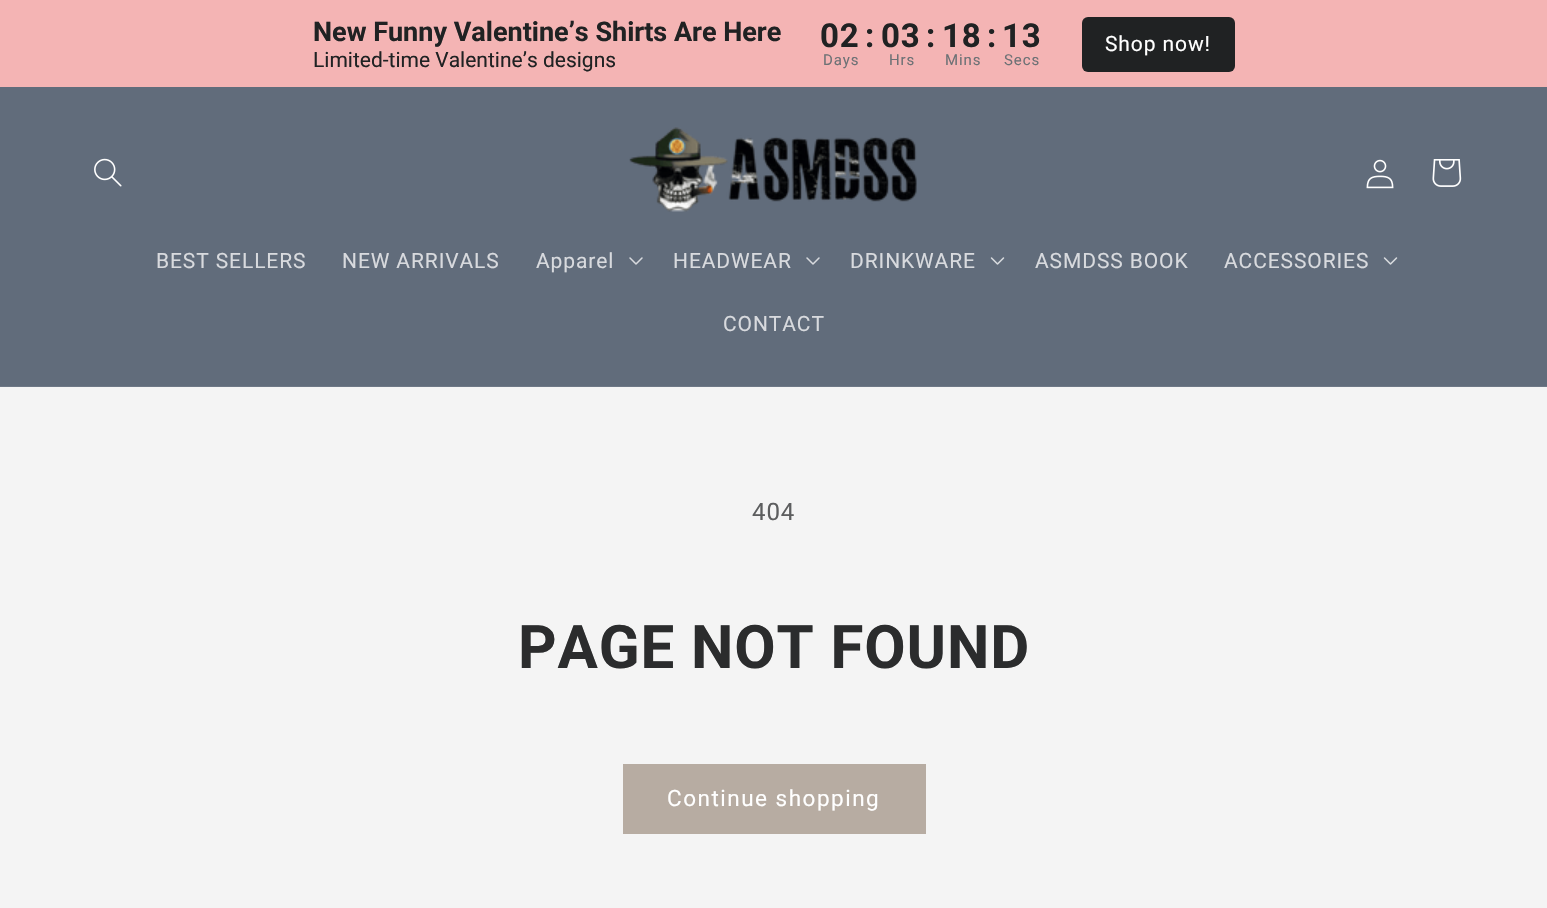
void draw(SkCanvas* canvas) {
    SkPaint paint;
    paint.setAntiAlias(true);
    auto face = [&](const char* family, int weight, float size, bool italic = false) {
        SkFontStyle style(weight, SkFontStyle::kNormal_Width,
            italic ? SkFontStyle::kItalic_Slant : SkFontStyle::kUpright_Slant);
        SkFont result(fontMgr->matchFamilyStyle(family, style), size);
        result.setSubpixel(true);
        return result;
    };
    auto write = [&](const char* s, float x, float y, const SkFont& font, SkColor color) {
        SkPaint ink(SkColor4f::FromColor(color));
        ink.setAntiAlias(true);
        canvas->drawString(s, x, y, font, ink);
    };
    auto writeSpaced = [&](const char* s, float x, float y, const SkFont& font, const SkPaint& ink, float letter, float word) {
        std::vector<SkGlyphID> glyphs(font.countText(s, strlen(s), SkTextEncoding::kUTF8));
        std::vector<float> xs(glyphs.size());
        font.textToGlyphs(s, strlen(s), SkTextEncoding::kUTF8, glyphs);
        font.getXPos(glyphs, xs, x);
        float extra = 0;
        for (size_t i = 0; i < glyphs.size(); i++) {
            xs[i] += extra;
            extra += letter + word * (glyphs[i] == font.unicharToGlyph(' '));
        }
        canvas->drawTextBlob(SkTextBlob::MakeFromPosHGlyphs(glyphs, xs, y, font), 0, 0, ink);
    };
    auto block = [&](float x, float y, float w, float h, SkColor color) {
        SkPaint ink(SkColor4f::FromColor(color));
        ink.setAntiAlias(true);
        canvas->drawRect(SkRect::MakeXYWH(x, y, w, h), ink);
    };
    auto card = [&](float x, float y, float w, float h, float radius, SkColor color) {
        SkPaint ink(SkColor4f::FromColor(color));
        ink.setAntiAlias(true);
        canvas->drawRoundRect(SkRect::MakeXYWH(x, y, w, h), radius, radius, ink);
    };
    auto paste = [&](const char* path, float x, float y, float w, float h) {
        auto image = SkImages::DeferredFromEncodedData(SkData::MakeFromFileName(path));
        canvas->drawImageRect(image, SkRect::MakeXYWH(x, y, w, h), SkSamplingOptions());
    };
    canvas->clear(SkColorSetRGB(244, 244, 244));
    block(0, 0, 1547, 87, SkColorSetRGB(244, 180, 180));
    auto kFont1 = face("Roboto", 700, 27);
    write("New Funny Valentine’s Shirts Are Here", 313, 41, kFont1, SkColorSetRGB(32, 34, 35));
    auto kFont2 = face("Roboto", 400, 21);
    write("Limited-time Valentine’s designs", 313, 67, kFont2, SkColorSetRGB(32, 34, 35));
    auto kFont3 = face("Roboto", 700, 33);
    paint.setColor(SkColorSetRGB(32, 34, 35));
    writeSpaced("02", 820, 47, kFont3, paint, 0.9f, 0);
    writeSpaced(":", 865, 47, kFont3, paint, 0.9f, 0);
    writeSpaced("03", 881, 47, kFont3, paint, 0.9f, 0);
    writeSpaced(":", 926, 47, kFont3, paint, 0.9f, 0);
    writeSpaced("18", 942, 47, kFont3, paint, 0.9f, 0);
    writeSpaced(":", 987, 47, kFont3, paint, 0.9f, 0);
    writeSpaced("13", 1002, 47, kFont3, paint, 0.9f, 0);
    auto kFont4 = face("Roboto", 400, 15);
    paint.setColor(SkColorSetRGB(109, 113, 117));
    writeSpaced("Days", 823, 65, kFont4, paint, 0.9f, 0);
    writeSpaced("Hrs", 889, 65, kFont4, paint, 0.9f, 0);
    writeSpaced("Mins", 945, 65, kFont4, paint, 0.9f, 0);
    writeSpaced("Secs", 1004, 65, kFont4, paint, 0.9f, 0);
    card(1082, 17, 153, 55, 6, SkColorSetRGB(32, 34, 35));
    paint.setColor(SK_ColorWHITE);
    writeSpaced("Shop now!", 1105, 51, kFont2, paint, 0.9f, 0);
    block(0, 87, 1547, 299, SkColorSetRGB(97, 108, 123));
    block(0, 386, 1547, 1, SkColorSetRGB(110, 120, 134));
    paste("pic1.png", 94, 158, 28, 29);
    paste("pic2.png", 629, 127, 288, 85);
    paste("pic3.png", 1366, 159, 28, 30);
    paste("pic4.png", 1432, 159, 30, 28);
    paint.setColor(SkColorSetRGB(216, 218, 222));
    writeSpaced("BEST SELLERS", 156, 268, kFont2, paint, 0.9f, 0);
    writeSpaced("NEW ARRIVALS", 342, 268, kFont2, paint, 0.9f, 0);
    writeSpaced("Apparel", 536, 268, kFont2, paint, 0.9f, 0);
    paste("pic5.png", 629, 257, 14, 8);
    writeSpaced("HEADWEAR", 673, 268, kFont2, paint, 0.9f, 0);
    paste("pic5.png", 806, 257, 14, 8);
    writeSpaced("DRINKWARE", 850, 268, kFont2, paint, 0.9f, 0);
    paste("pic6.png", 990, 257, 15, 8);
    writeSpaced("ASMDSS BOOK", 1035, 268, kFont2, paint, 0.9f, 0);
    writeSpaced("ACCESSORIES", 1224, 268, kFont2, paint, 0.9f, 0);
    paste("pic6.png", 1383, 257, 15, 8);
    writeSpaced("CONTACT", 723, 331, kFont2, paint, 0.9f, 0);
    auto kFont5 = face("Roboto", 400, 24);
    paint.setColor(SkColorSetRGB(93, 94, 95));
    writeSpaced("404", 752, 520, kFont5, paint, 0.9f, 0);
    auto kFont6 = face("Roboto", 700, 60);
    paint.setColor(SkColorSetRGB(43, 44, 45));
    writeSpaced("PAGE NOT FOUND", 518, 668, kFont6, paint, 0.9f, 0);
    block(623, 764, 303, 70, SkColorSetRGB(183, 172, 162));
    auto kFont7 = face("Roboto", 400, 22.5f);
    paint.setColor(SK_ColorWHITE);
    writeSpaced("Continue shopping", 667, 806, kFont7, paint, 1.5f, 0);
}
